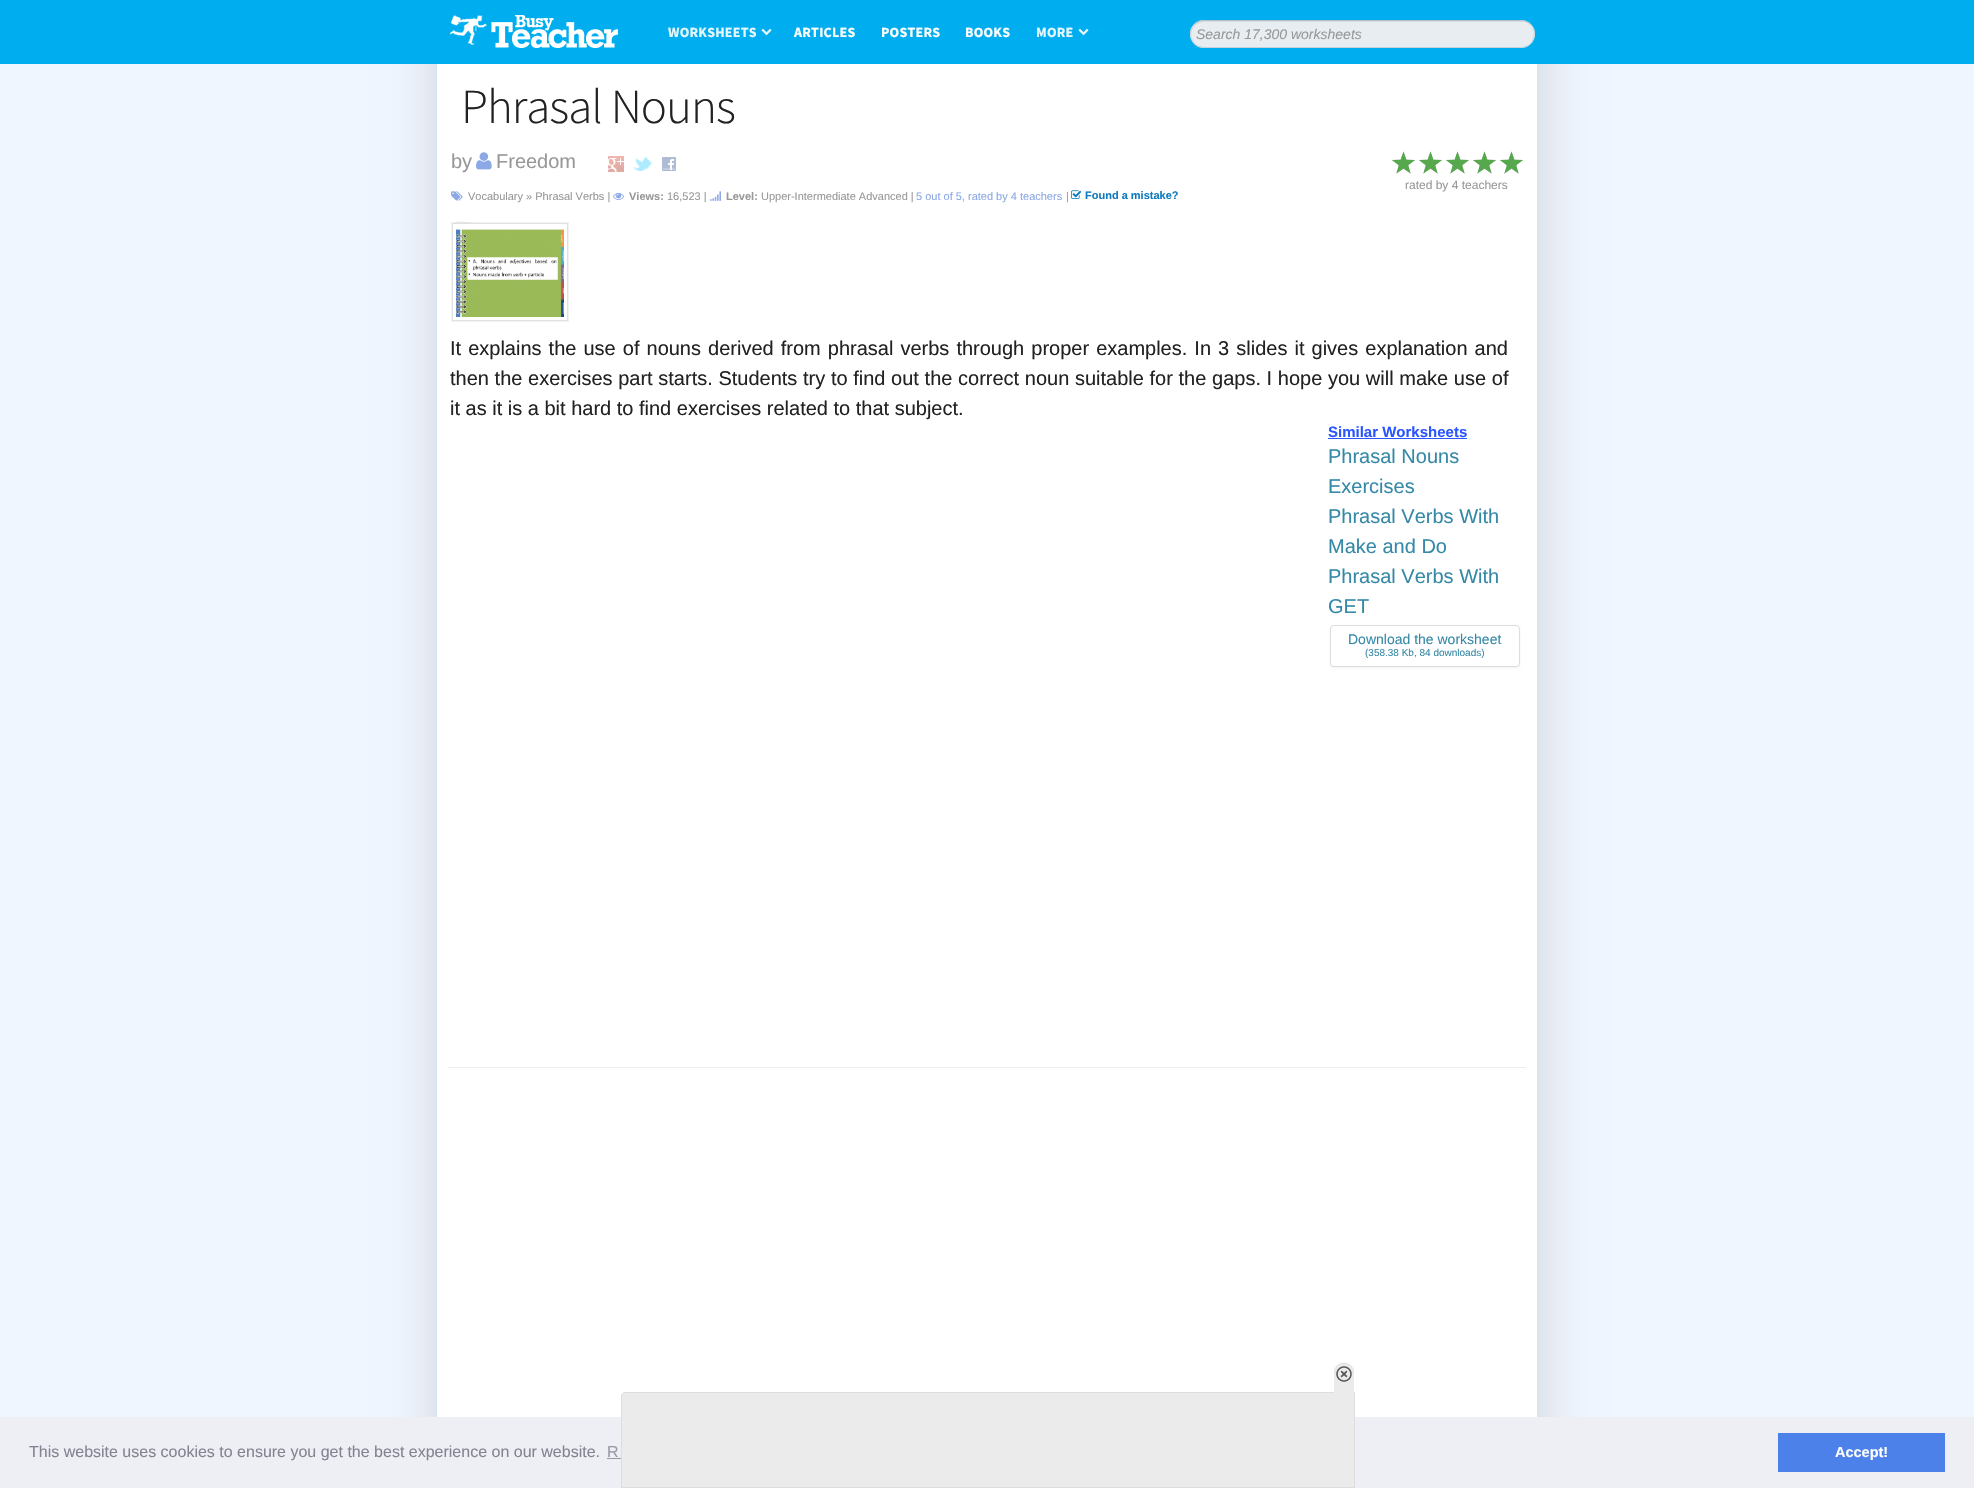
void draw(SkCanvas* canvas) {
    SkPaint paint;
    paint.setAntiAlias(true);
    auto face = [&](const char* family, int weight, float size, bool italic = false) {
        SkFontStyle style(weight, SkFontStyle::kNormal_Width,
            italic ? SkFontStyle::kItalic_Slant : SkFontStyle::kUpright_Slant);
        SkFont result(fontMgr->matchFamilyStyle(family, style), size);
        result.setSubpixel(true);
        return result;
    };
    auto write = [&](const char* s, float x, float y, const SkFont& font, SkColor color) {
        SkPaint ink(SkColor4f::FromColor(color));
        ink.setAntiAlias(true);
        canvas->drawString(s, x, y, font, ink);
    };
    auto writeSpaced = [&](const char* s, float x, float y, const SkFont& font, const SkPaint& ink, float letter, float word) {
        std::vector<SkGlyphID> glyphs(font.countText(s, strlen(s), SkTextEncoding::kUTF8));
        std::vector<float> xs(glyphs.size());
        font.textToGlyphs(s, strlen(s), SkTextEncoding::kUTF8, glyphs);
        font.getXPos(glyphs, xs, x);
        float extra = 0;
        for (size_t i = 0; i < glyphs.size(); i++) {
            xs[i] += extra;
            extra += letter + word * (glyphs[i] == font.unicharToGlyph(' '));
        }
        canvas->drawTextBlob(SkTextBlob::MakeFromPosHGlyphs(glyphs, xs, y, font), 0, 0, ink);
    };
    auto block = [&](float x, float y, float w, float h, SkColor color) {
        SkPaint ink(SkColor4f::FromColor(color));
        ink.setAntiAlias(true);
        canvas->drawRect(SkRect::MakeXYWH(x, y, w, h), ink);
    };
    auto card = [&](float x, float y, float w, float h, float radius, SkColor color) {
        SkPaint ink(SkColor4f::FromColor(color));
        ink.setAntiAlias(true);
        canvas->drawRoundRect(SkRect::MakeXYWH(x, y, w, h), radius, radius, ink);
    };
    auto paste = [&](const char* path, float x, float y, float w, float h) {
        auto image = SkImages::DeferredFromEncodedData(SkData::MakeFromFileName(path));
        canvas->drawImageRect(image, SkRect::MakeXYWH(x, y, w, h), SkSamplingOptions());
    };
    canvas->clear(SkColorSetRGB(240, 246, 255));
    paint.setColor(SkColorSetARGB(26, 0, 0, 0));
    paint.setMaskFilter(SkMaskFilter::MakeBlur(kNormal_SkBlurStyle, 20));
    canvas->drawRect(SkRect::MakeXYWH(428, 5, 1122, 1452), paint);
    paint.setMaskFilter(nullptr);
    block(437, 64, 1100, 1353, SK_ColorWHITE);
    paint.setStyle(SkPaint::kStroke_Style);
    paint.setStrokeWidth(1);
    paint.setColor(SkColorSetRGB(210, 229, 243));
    canvas->drawRect(SkRect::MakeXYWH(436.5f, 0.5f, 1101, 1431), paint);
    block(0, 0, 1974, 64, SkColorSetRGB(0, 174, 239));
    paste("pic1.png", 450, 15, 168, 33);
    auto kFont1 = face("Source Sans Pro", 700, 14);
    paint.setStyle(SkPaint::kFill_Style);
    paint.setColor(SkColorSetRGB(230, 247, 253));
    writeSpaced("WORKSHEETS", 668, 37, kFont1, paint, 0.25f, 0);
    paste("pic2.png", 761, 28, 11, 8);
    paint.setColor(SK_ColorWHITE);
    writeSpaced("ARTICLES", 794, 37, kFont1, paint, 0.25f, 0);
    writeSpaced("POSTERS", 881, 37, kFont1, paint, 0.25f, 0);
    writeSpaced("BOOKS", 965, 37, kFont1, paint, 0.25f, 0);
    paint.setColor(SkColorSetRGB(230, 247, 253));
    writeSpaced("MORE", 1036, 37, kFont1, paint, 0.25f, 0);
    paste("pic2.png", 1078, 28, 11, 8);
    card(1190, 20, 345, 28, 14, SkColorSetRGB(232, 237, 241));
    paint.setStyle(SkPaint::kStroke_Style);
    paint.setColor(SkColorSetRGB(180, 193, 203));
    canvas->drawPath(SkPathBuilder().moveTo(1194.5f, 24.5f).cubicTo(1197, 22, 1200.5f, 20.5f, 1204, 20.5f).lineTo(1521, 20.5f).cubicTo(1524.5f, 20.5f, 1528, 22, 1530.5f, 24.5f).detach(), paint);
    paint.setColor(SkColorSetRGB(198, 210, 219));
    canvas->drawPath(SkPathBuilder().moveTo(1530.5f, 24.5f).cubicTo(1537, 31, 1535, 43, 1526, 46.5f).lineTo(1521, 47.5f).lineTo(1204, 47.5f).lineTo(1199, 46.5f).cubicTo(1190, 43, 1188, 31, 1194.5f, 24.5f).detach(), paint);
    paint.setStyle(SkPaint::kFill_Style);
    paint.setColor(SkColorSetARGB(18, 0, 0, 0));
    canvas->drawPath(SkPathBuilder().moveTo(1204, 22).cubicTo(1197, 22, 1191, 28, 1191, 35).lineTo(1191, 34).cubicTo(1191, 27, 1197, 21, 1204, 21).lineTo(1521, 21).lineTo(1526, 22).close().detach(), paint);
    auto kFont2 = face("Liberation Sans", 400, 14, true);
    write("Search 17,300 worksheets", 1196, 39, kFont2, SkColorSetRGB(152, 152, 152));
    auto kFont3 = face("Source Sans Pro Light", 300, 49);
    paint.setColor(SkColorSetRGB(34, 34, 34));
    writeSpaced("Phrasal Nouns", 461, 123, kFont3, paint, -1, 0);
    auto kFont4 = face("Liberation Sans", 400, 20);
    write("by", 451, 168, kFont4, SkColorSetRGB(152, 152, 152));
    paste("pic3.png", 476, 152, 16, 18);
    write("Freedom", 496, 168, kFont4, SkColorSetRGB(152, 152, 152));
    paste("pic4.png", 608, 156, 16, 16);
    paste("pic5.png", 632, 157, 21, 14);
    paste("pic6.png", 662, 157, 14, 14);
    paste("pic7.png", 1392, 151, 131, 23);
    paste("pic8.png", 1392, 151, 131, 23);
    auto kFont5 = face("Liberation Sans", 400, 12);
    write("rated by 4 teachers", 1405, 189, kFont5, SkColorSetRGB(152, 152, 152));
    paste("pic9.png", 451, 191, 12, 10);
    auto kFont6 = face("Liberation Sans", 400, 11);
    write("Vocabulary » Phrasal Verbs |", 468, 200, kFont6, SkColorSetRGB(152, 152, 152));
    paste("pic10.png", 613, 192, 11, 8);
    auto kFont7 = face("Liberation Sans", 700, 11);
    write("Views:", 629, 200, kFont7, SkColorSetRGB(152, 152, 152));
    write("16,523 |", 667, 200, kFont6, SkColorSetRGB(152, 152, 152));
    paste("pic11.png", 710, 191, 11, 10);
    write("Level:", 726, 200, kFont7, SkColorSetRGB(152, 152, 152));
    write("Upper-Intermediate Advanced |", 761, 200, kFont6, SkColorSetRGB(152, 152, 152));
    write("5 out of 5, rated by 4 teachers", 916, 200, kFont6, SkColorSetRGB(140, 169, 229));
    write("|", 1066, 200, kFont6, SkColorSetRGB(152, 152, 152));
    paste("pic12.png", 1071, 190, 11, 9);
    write("Found a mistake?", 1085, 199, kFont7, SkColorSetRGB(13, 122, 191));
    paint.setColor(SkColorSetRGB(242, 242, 242));
    canvas->drawPath(SkPathBuilder().moveTo(455, 224).lineTo(565, 224).cubicTo(567, 224, 568, 225, 568, 227).cubicTo(568, 225, 567, 223, 565, 223).lineTo(473, 223).cubicTo(472, 223, 452, 218, 452, 227).cubicTo(452, 225, 453, 224, 455, 224).close().detach(), paint);
    paint.setStyle(SkPaint::kStroke_Style);
    paint.setColor(SkColorSetARGB(13, 0, 0, 0));
    canvas->drawRect(SkRect::MakeXYWH(451.5f, 222.5f, 117, 99), paint);
    block(453, 224, 114, 1, SK_ColorWHITE);
    paint.setColor(SkColorSetRGB(225, 225, 225));
    canvas->drawRect(SkRect::MakeXYWH(452.5f, 223.5f, 115, 97), paint);
    paste("pic13.png", 456, 229, 108, 88);
    paint.setStyle(SkPaint::kFill_Style);
    paint.setColor(SkColorSetRGB(34, 34, 34));
    writeSpaced("It explains the use of nouns derived from phrasal verbs through proper examples. In 3 slides it gives explanation and", 450, 355, kFont4, paint, 0, 1.5f);
    writeSpaced("then the exercises part starts. Students try to find out the correct noun suitable for the gaps. I hope you will make use of", 450, 385, kFont4, paint, 0, 0.1f);
    write("it as it is a bit hard to find exercises related to that subject.", 450, 415, kFont4, SkColorSetRGB(34, 34, 34));
    auto kFont8 = face("Liberation Sans", 700, 15);
    write("Similar Worksheets", 1328, 437, kFont8, SkColorSetRGB(42, 85, 255));
    block(1328, 438, 139, 1, SkColorSetRGB(42, 85, 255));
    write("Phrasal Nouns", 1328, 463, kFont4, SkColorSetRGB(53, 137, 167));
    write("Exercises", 1328, 493, kFont4, SkColorSetRGB(53, 137, 167));
    write("Phrasal Verbs With", 1328, 523, kFont4, SkColorSetRGB(53, 137, 167));
    write("Make and Do", 1328, 553, kFont4, SkColorSetRGB(53, 137, 167));
    write("Phrasal Verbs With", 1328, 583, kFont4, SkColorSetRGB(53, 137, 167));
    write("GET", 1328, 613, kFont4, SkColorSetRGB(53, 137, 167));
    paint.setColor(SkColorSetARGB(13, 0, 0, 0));
    paint.setMaskFilter(SkMaskFilter::MakeBlur(kNormal_SkBlurStyle, 1));
    canvas->drawRoundRect(SkRect::MakeXYWH(1330, 626, 190, 42), 4, 4, paint);
    paint.setMaskFilter(nullptr);
    paint.setColor(SK_ColorWHITE);
    canvas->drawRoundRect(SkRect::MakeXYWH(1330.5f, 625.5f, 189, 41), 3.5f, 3.5f, paint);
    paint.setStyle(SkPaint::kStroke_Style);
    paint.setColor(SkColorSetRGB(221, 221, 221));
    canvas->drawRoundRect(SkRect::MakeXYWH(1330.5f, 625.5f, 189, 41), 3.5f, 3.5f, paint);
    auto kFont9 = face("Liberation Sans", 400, 14);
    write("Download the worksheet", 1348, 644, kFont9, SkColorSetRGB(53, 137, 167));
    auto kFont10 = face("Liberation Sans", 400, 10);
    write("(358.38 Kb, 84 downloads)", 1365, 656, kFont10, SkColorSetRGB(53, 137, 167));
    block(448, 1067, 1078, 1, SkColorSetRGB(238, 238, 238));
    block(0, 1417, 1974, 71, SkColorSetRGB(237, 239, 245));
    paint.setStyle(SkPaint::kFill_Style);
    paint.setColor(SkColorSetRGB(235, 235, 235));
    canvas->drawPath(SkPathBuilder().moveTo(625, 1392.5f).lineTo(1354.5f, 1392.5f).lineTo(1354.5f, 1487.5f).lineTo(621.5f, 1487.5f).lineTo(621.5f, 1396).cubicTo(621.5f, 1394, 623, 1392.5f, 625, 1392.5f).close().detach(), paint);
    paint.setStyle(SkPaint::kStroke_Style);
    paint.setColor(SkColorSetRGB(221, 221, 221));
    canvas->drawPath(SkPathBuilder().moveTo(625, 1392.5f).lineTo(1354.5f, 1392.5f).lineTo(1354.5f, 1487.5f).lineTo(621.5f, 1487.5f).lineTo(621.5f, 1396).cubicTo(621.5f, 1394, 623, 1392.5f, 625, 1392.5f).close().detach(), paint);
    paint.setStyle(SkPaint::kFill_Style);
    paint.setColor(SkColorSetRGB(235, 235, 235));
    canvas->drawCircle(1344, 1373, 10, paint);
    canvas->save();
    canvas->clipRect(SkRect::MakeXYWH(1334, 1353, 20, 40));
    paint.setStyle(SkPaint::kStroke_Style);
    paint.setStrokeWidth(0.5f);
    paint.setColor(SkColorSetRGB(204, 204, 204));
    canvas->drawCircle(1344, 1373, 10, paint);
    canvas->restore();
    block(1334, 1373, 20, 20, SkColorSetRGB(235, 235, 235));
    paste("pic14.png", 1336, 1366, 16, 16);
    auto kFont11 = face("Liberation Sans", 400, 16);
    write("This website uses cookies to ensure you get the best experience on our website.", 29, 1457, kFont11, SkColorSetRGB(131, 131, 145));
    write("R", 607, 1457, kFont11, SkColorSetRGB(152, 153, 165));
    block(607, 1458, 14, 1, SkColorSetRGB(152, 153, 165));
    block(1778, 1433, 167, 39, SkColorSetRGB(75, 129, 232));
    auto kFont12 = face("Liberation Sans", 700, 14.5f);
    write("Accept!", 1835, 1457, kFont12, SK_ColorWHITE);
}
